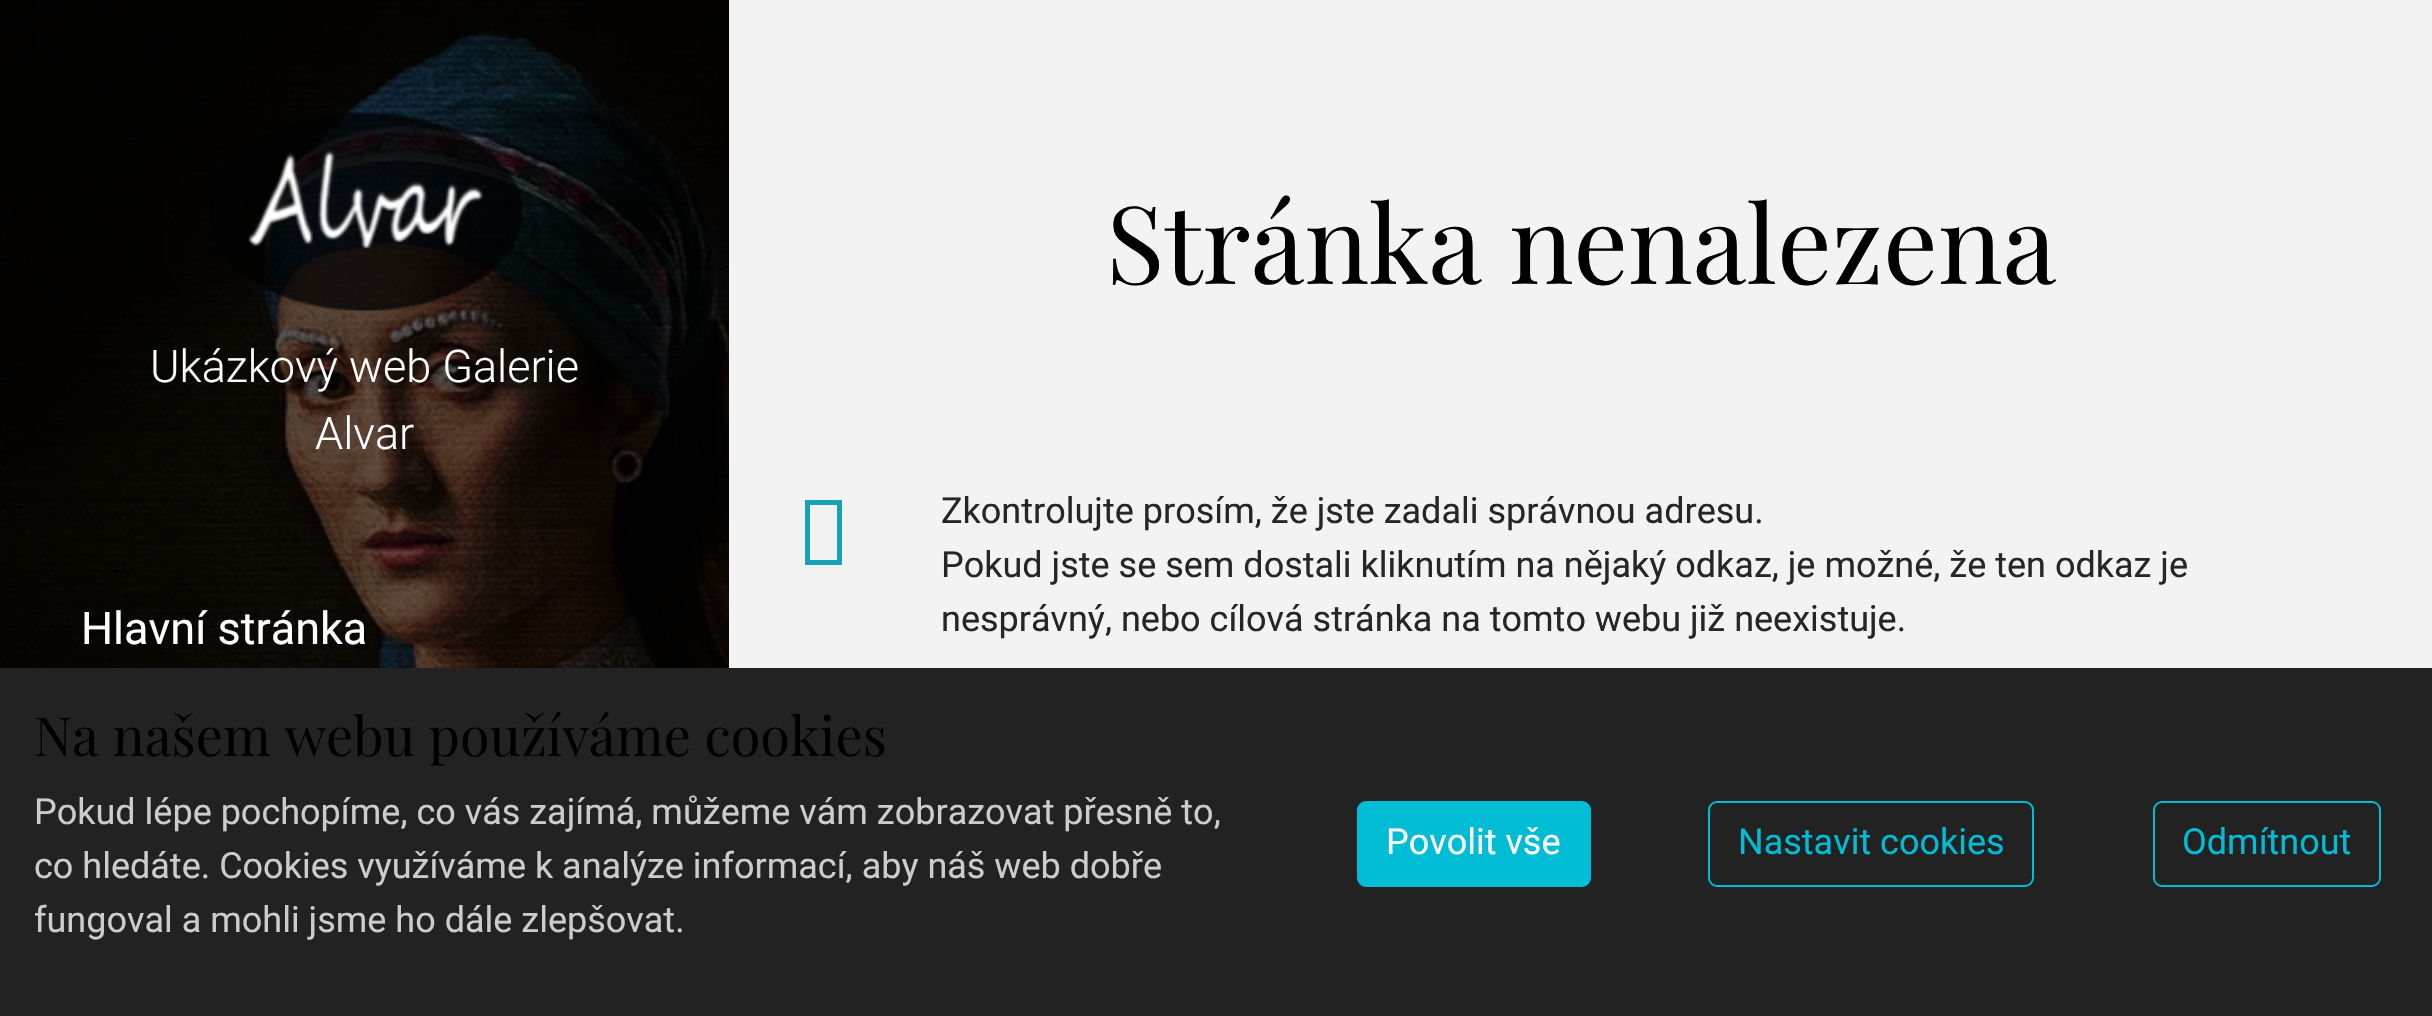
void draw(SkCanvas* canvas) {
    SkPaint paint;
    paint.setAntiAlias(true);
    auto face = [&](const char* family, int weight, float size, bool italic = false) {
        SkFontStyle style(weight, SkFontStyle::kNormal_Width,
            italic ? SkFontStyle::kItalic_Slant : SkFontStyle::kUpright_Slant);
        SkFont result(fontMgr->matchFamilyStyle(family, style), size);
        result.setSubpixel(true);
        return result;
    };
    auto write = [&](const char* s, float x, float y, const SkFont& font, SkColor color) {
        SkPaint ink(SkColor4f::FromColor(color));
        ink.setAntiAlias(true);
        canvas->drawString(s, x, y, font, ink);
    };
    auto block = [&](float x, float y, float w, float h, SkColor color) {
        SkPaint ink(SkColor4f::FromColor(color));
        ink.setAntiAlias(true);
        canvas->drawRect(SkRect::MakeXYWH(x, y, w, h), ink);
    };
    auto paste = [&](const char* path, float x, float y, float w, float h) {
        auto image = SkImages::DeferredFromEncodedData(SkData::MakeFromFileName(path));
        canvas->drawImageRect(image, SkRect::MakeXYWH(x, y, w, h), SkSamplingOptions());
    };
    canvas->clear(SK_ColorWHITE);
    paste("pic1.png", 0, 0, 729, 668);
    paste("pic2.png", 210, 111, 313, 200);
    auto kFont1 = face("Roboto", 300, 45);
    write("Ukázkový web Galerie", 150, 382, kFont1, SK_ColorWHITE);
    write("Alvar", 315, 449, kFont1, SK_ColorWHITE);
    auto kFont2 = face("Roboto", 400, 45);
    write("Hlavní stránka", 81, 644, kFont2, SK_ColorWHITE);
    block(729, 0, 1703, 668, SkColorSetRGB(243, 243, 243));
    auto kFont3 = face("Playfair Display", 400, 108);
    write("Stránka nenalezena", 1106, 284, kFont3, SK_ColorBLACK);
    paint.setColor(SkColorSetRGB(23, 162, 184));
    canvas->drawPath(SkPathBuilder().moveTo(805, 565).lineTo(805, 500).lineTo(842, 500).lineTo(842, 565).close().moveTo(810, 560).lineTo(837, 560).lineTo(837, 505).lineTo(810, 505).close().detach(), paint);
    auto kFont4 = face("Roboto", 400, 36);
    write("Zkontrolujte prosím, že jste zadali správnou adresu.", 941, 523, kFont4, SkColorSetRGB(38, 38, 38));
    write("Pokud jste se sem dostali kliknutím na nějaký odkaz, je možné, že ten odkaz je", 941, 577, kFont4, SkColorSetRGB(38, 38, 38));
    write("nesprávný, nebo cílová stránka na tomto webu již neexistuje.", 941, 631, kFont4, SkColorSetRGB(38, 38, 38));
    block(0, 668, 2432, 348, SkColorSetRGB(34, 34, 34));
    auto kFont5 = face("Playfair Display", 400, 54);
    write("Na našem webu používáme cookies", 34, 756, kFont5, SK_ColorBLACK);
    write("Pokud lépe pochopíme, co vás zajímá, můžeme vám zobrazovat přesně to,", 34, 824, kFont4, SkColorSetRGB(204, 204, 204));
    write("co hledáte. Cookies využíváme k analýze informací, aby náš web dobře", 34, 878, kFont4, SkColorSetRGB(204, 204, 204));
    write("fungoval a mohli jsme ho dále zlepšovat.", 34, 932, kFont4, SkColorSetRGB(204, 204, 204));
    paint.setColor(SkColorSetRGB(0, 188, 212));
    canvas->drawRoundRect(SkRect::MakeXYWH(1358, 802, 232, 84), 8, 8, paint);
    paint.setStyle(SkPaint::kStroke_Style);
    paint.setStrokeWidth(2);
    canvas->drawRoundRect(SkRect::MakeXYWH(1358, 802, 232, 84), 8, 8, paint);
    write("Povolit vše", 1386, 854, kFont4, SK_ColorWHITE);
    canvas->drawRoundRect(SkRect::MakeXYWH(1709, 802, 324, 84), 8, 8, paint);
    write("Nastavit cookies", 1738, 854, kFont4, SkColorSetRGB(0, 188, 212));
    canvas->drawRoundRect(SkRect::MakeXYWH(2154, 802, 226, 84), 8, 8, paint);
    write("Odmítnout", 2182, 854, kFont4, SkColorSetRGB(0, 188, 212));
}
